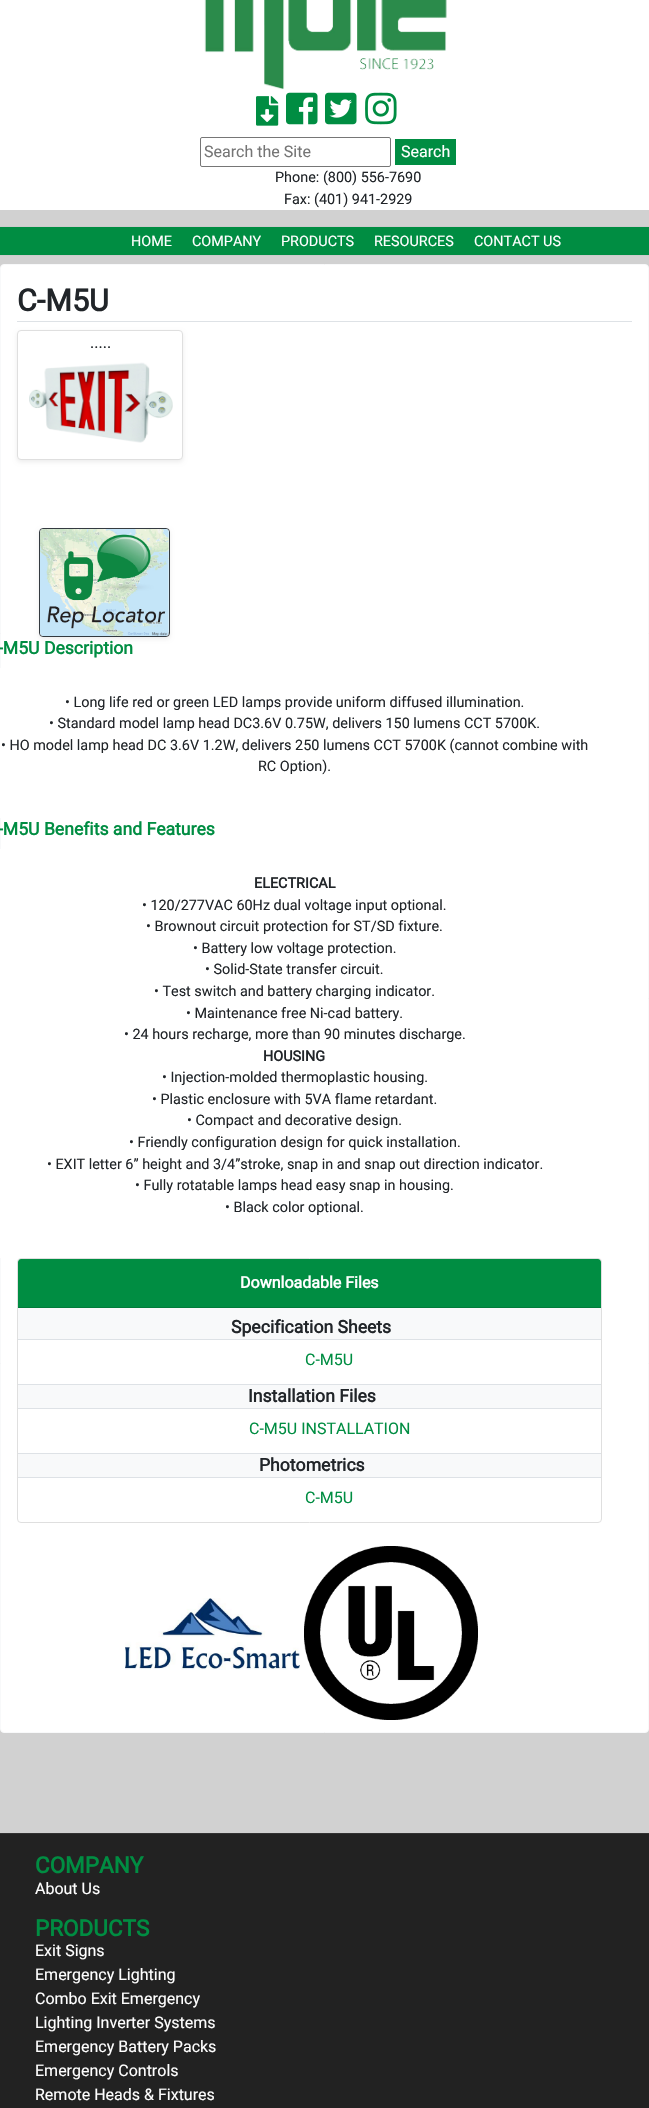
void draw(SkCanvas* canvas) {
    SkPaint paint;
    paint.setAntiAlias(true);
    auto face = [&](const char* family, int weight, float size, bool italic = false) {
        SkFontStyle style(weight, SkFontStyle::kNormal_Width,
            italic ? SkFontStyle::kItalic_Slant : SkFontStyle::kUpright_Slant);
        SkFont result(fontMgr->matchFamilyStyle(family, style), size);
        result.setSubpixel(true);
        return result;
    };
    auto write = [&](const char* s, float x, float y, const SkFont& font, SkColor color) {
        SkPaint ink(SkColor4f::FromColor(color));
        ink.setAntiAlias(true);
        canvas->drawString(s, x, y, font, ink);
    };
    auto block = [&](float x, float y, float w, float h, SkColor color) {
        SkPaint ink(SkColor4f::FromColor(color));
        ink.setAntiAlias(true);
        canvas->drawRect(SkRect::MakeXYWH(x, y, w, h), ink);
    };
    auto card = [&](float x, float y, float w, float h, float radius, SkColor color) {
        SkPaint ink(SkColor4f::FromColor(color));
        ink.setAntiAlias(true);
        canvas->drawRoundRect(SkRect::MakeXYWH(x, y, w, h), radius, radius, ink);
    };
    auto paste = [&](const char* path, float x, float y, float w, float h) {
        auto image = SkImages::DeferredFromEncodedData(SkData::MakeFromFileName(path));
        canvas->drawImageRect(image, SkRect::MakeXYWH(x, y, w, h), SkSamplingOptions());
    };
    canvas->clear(SkColorSetRGB(209, 209, 209));
    block(0, 0, 649, 210, SK_ColorWHITE);
    paste("pic1.png", 204, 0, 243, 90);
    paste("pic2.png", 256, 96, 23, 30);
    paste("pic3.png", 286, 92, 32, 33);
    paste("pic4.png", 325, 92, 32, 33);
    paste("pic5.png", 365, 92, 32, 33);
    paint.setStyle(SkPaint::kStroke_Style);
    paint.setStrokeWidth(1);
    paint.setColor(SkColorSetRGB(118, 118, 118));
    canvas->drawRoundRect(SkRect::MakeXYWH(200.5f, 137.5f, 190, 29), 1.5f, 1.5f, paint);
    auto kFont1 = face("Roboto", 400, 16);
    write("Search the Site", 204, 157, kFont1, SkColorSetRGB(117, 117, 117));
    block(395, 139, 61, 26, SkColorSetRGB(0, 141, 66));
    write("Search", 401, 157, kFont1, SK_ColorWHITE);
    auto kFont2 = face("Roboto", 400, 14.4f);
    write("Phone: (800) 556-7690", 275, 182, kFont2, SkColorSetRGB(33, 37, 41));
    write("Fax: (401) 941-2929", 284, 204, kFont2, SkColorSetRGB(33, 37, 41));
    block(0, 227, 649, 28, SkColorSetRGB(0, 141, 66));
    block(0, 226, 649, 1, SkColorSetRGB(204, 204, 204));
    block(0, 255, 649, 1, SkColorSetRGB(204, 204, 204));
    write("HOME", 131, 246, kFont2, SK_ColorWHITE);
    write("COMPANY", 192, 246, kFont2, SK_ColorWHITE);
    write("PRODUCTS", 281, 246, kFont2, SK_ColorWHITE);
    write("RESOURCES", 374, 246, kFont2, SK_ColorWHITE);
    write("CONTACT US", 474, 246, kFont2, SK_ColorWHITE);
    paint.setStyle(SkPaint::kFill_Style);
    paint.setColor(SK_ColorWHITE);
    canvas->drawRoundRect(SkRect::MakeXYWH(0.5f, 264.5f, 648, 1468), 3.5f, 3.5f, paint);
    paint.setStyle(SkPaint::kStroke_Style);
    paint.setColor(SkColorSetRGB(248, 249, 250));
    canvas->drawRoundRect(SkRect::MakeXYWH(0.5f, 264.5f, 648, 1468), 3.5f, 3.5f, paint);
    block(17, 321, 615, 1, SkColorSetRGB(222, 226, 230));
    auto kFont3 = face("Roboto", 700, 30.5f);
    write("C-M5U", 17, 311, kFont3, SkColorSetRGB(33, 37, 41));
    paint.setStyle(SkPaint::kFill_Style);
    paint.setColor(SkColorSetARGB(18, 0, 0, 0));
    paint.setMaskFilter(SkMaskFilter::MakeBlur(kNormal_SkBlurStyle, 2));
    canvas->drawRoundRect(SkRect::MakeXYWH(17, 332, 166, 130), 4, 4, paint);
    paint.setMaskFilter(nullptr);
    paint.setColor(SK_ColorWHITE);
    canvas->drawRoundRect(SkRect::MakeXYWH(17.5f, 330.5f, 165, 129), 3.5f, 3.5f, paint);
    paint.setStyle(SkPaint::kStroke_Style);
    paint.setColor(SkColorSetRGB(223, 223, 223));
    canvas->drawRoundRect(SkRect::MakeXYWH(17.5f, 330.5f, 165, 129), 3.5f, 3.5f, paint);
    write(".....", 90, 348, kFont1, SkColorSetRGB(33, 37, 41));
    paste("pic6.png", 29, 362, 144, 81);
    paint.setStyle(SkPaint::kFill_Style);
    paint.setColor(SkColorSetARGB(18, 0, 0, 0));
    paint.setMaskFilter(SkMaskFilter::MakeBlur(kNormal_SkBlurStyle, 2));
    canvas->drawRoundRect(SkRect::MakeXYWH(39, 530, 131, 109), 4, 4, paint);
    paint.setMaskFilter(nullptr);
    paint.setColor(SK_ColorWHITE);
    canvas->drawRoundRect(SkRect::MakeXYWH(39.5f, 528.5f, 130, 108), 3.5f, 3.5f, paint);
    paint.setStyle(SkPaint::kStroke_Style);
    paint.setColor(SkColorSetRGB(52, 58, 64));
    canvas->drawRoundRect(SkRect::MakeXYWH(39.5f, 528.5f, 130, 108), 3.5f, 3.5f, paint);
    paste("pic7.png", 40, 529, 129, 107);
    auto kFont4 = face("Roboto", 700, 17.6f);
    write("-M5U Description", -2, 654, kFont4, SkColorSetRGB(0, 141, 66));
    card(-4, 668, 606, 150, 4, SK_ColorWHITE);
    write("• Long life red or green LED lamps provide uniform diffused illumination.", 65, 707, kFont2, SkColorSetRGB(33, 37, 41));
    write("• Standard model lamp head DC3.6V 0.75W, delivers 150 lumens CCT 5700K.", 49, 728, kFont2, SkColorSetRGB(33, 37, 41));
    write("• HO model lamp head DC 3.6V 1.2W, delivers 250 lumens CCT 5700K (cannot combine with", 1, 750, kFont2, SkColorSetRGB(33, 37, 41));
    write("RC Option).", 258, 771, kFont2, SkColorSetRGB(33, 37, 41));
    write("-M5U Benefits and Features", -2, 835, kFont4, SkColorSetRGB(0, 141, 66));
    card(-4, 849, 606, 409, 4, SK_ColorWHITE);
    auto kFont5 = face("Roboto", 700, 14.4f);
    write("ELECTRICAL", 254, 888, kFont5, SkColorSetRGB(33, 37, 41));
    write("• 120/277VAC 60Hz dual voltage input optional.", 142, 910, kFont2, SkColorSetRGB(33, 37, 41));
    write("• Brownout circuit protection for ST/SD fixture.", 146, 931, kFont2, SkColorSetRGB(33, 37, 41));
    write("• Battery low voltage protection.", 193, 953, kFont2, SkColorSetRGB(33, 37, 41));
    write("• Solid-State transfer circuit.", 205, 974, kFont2, SkColorSetRGB(33, 37, 41));
    write("• Test switch and battery charging indicator.", 154, 996, kFont2, SkColorSetRGB(33, 37, 41));
    write("• Maintenance free Ni-cad battery.", 186, 1018, kFont2, SkColorSetRGB(33, 37, 41));
    write("• 24 hours recharge, more than 90 minutes discharge.", 124, 1039, kFont2, SkColorSetRGB(33, 37, 41));
    write("HOUSING", 263, 1061, kFont5, SkColorSetRGB(33, 37, 41));
    write("• Injection-molded thermoplastic housing.", 162, 1082, kFont2, SkColorSetRGB(33, 37, 41));
    write("• Plastic enclosure with 5VA flame retardant.", 152, 1104, kFont2, SkColorSetRGB(33, 37, 41));
    write("• Compact and decorative design.", 187, 1125, kFont2, SkColorSetRGB(33, 37, 41));
    write("• Friendly configuration design for quick installation.", 129, 1147, kFont2, SkColorSetRGB(33, 37, 41));
    write("• EXIT letter 6” height and 3/4”stroke, snap in and snap out direction indicator.", 47, 1169, kFont2, SkColorSetRGB(33, 37, 41));
    write("• Fully rotatable lamps head easy snap in housing.", 135, 1190, kFont2, SkColorSetRGB(33, 37, 41));
    write("• Black color optional.", 225, 1212, kFont2, SkColorSetRGB(33, 37, 41));
    paint.setColor(SkColorSetRGB(223, 223, 223));
    canvas->drawRoundRect(SkRect::MakeXYWH(17.5f, 1258.5f, 584, 264), 3.5f, 3.5f, paint);
    paint.setStyle(SkPaint::kFill_Style);
    paint.setColor(SkColorSetRGB(0, 141, 66));
    canvas->drawPath(SkPathBuilder().moveTo(21, 1259).lineTo(598, 1259).cubicTo(599.5f, 1259, 601, 1260.5f, 601, 1262).lineTo(601, 1308).lineTo(18, 1308).lineTo(18, 1262).cubicTo(18, 1260.5f, 19.5f, 1259, 21, 1259).close().detach(), paint);
    block(18, 1307, 583, 1, SkColorSetRGB(0, 123, 58));
    auto kFont6 = face("Roboto", 700, 16);
    write("Downloadable Files", 240, 1288, kFont6, SK_ColorWHITE);
    block(18, 1308, 583, 31, SkColorSetRGB(248, 249, 250));
    block(18, 1339, 583, 1, SkColorSetRGB(222, 226, 230));
    write("Specification Sheets", 231, 1333, kFont4, SkColorSetRGB(33, 37, 41));
    write("C-M5U", 305, 1365, kFont1, SkColorSetRGB(0, 141, 66));
    block(18, 1385, 583, 23, SkColorSetRGB(248, 249, 250));
    block(18, 1384, 583, 1, SkColorSetRGB(222, 226, 230));
    block(18, 1408, 583, 1, SkColorSetRGB(222, 226, 230));
    write("Installation Files", 248, 1402, kFont4, SkColorSetRGB(33, 37, 41));
    write("C-M5U INSTALLATION", 249, 1434, kFont1, SkColorSetRGB(0, 141, 66));
    block(18, 1454, 583, 23, SkColorSetRGB(248, 249, 250));
    block(18, 1453, 583, 1, SkColorSetRGB(222, 226, 230));
    block(18, 1477, 583, 1, SkColorSetRGB(222, 226, 230));
    write("Photometrics", 259, 1471, kFont4, SkColorSetRGB(33, 37, 41));
    write("C-M5U", 305, 1503, kFont1, SkColorSetRGB(0, 141, 66));
    paste("pic8.png", 125, 1598, 175, 72);
    paste("pic9.png", 304, 1546, 174, 174);
    block(0, 1834, 649, 274, SkColorSetRGB(34, 34, 34));
    block(0, 1833, 649, 1, SkColorSetRGB(51, 51, 51));
    auto kFont7 = face("Roboto", 700, 22.5f);
    write("COMPANY", 35, 1873, kFont7, SkColorSetRGB(0, 141, 66));
    write("About Us", 35, 1894, kFont1, SK_ColorWHITE);
    write("PRODUCTS", 35, 1936, kFont7, SkColorSetRGB(0, 141, 66));
    write("Exit Signs", 35, 1956, kFont1, SK_ColorWHITE);
    write("Emergency Lighting", 35, 1980, kFont1, SK_ColorWHITE);
    write("Combo Exit Emergency", 35, 2004, kFont1, SK_ColorWHITE);
    write("Lighting Inverter Systems", 35, 2028, kFont1, SK_ColorWHITE);
    write("Emergency Battery Packs", 35, 2052, kFont1, SK_ColorWHITE);
    write("Emergency Controls", 35, 2076, kFont1, SK_ColorWHITE);
    write("Remote Heads & Fixtures", 35, 2100, kFont1, SK_ColorWHITE);
}
